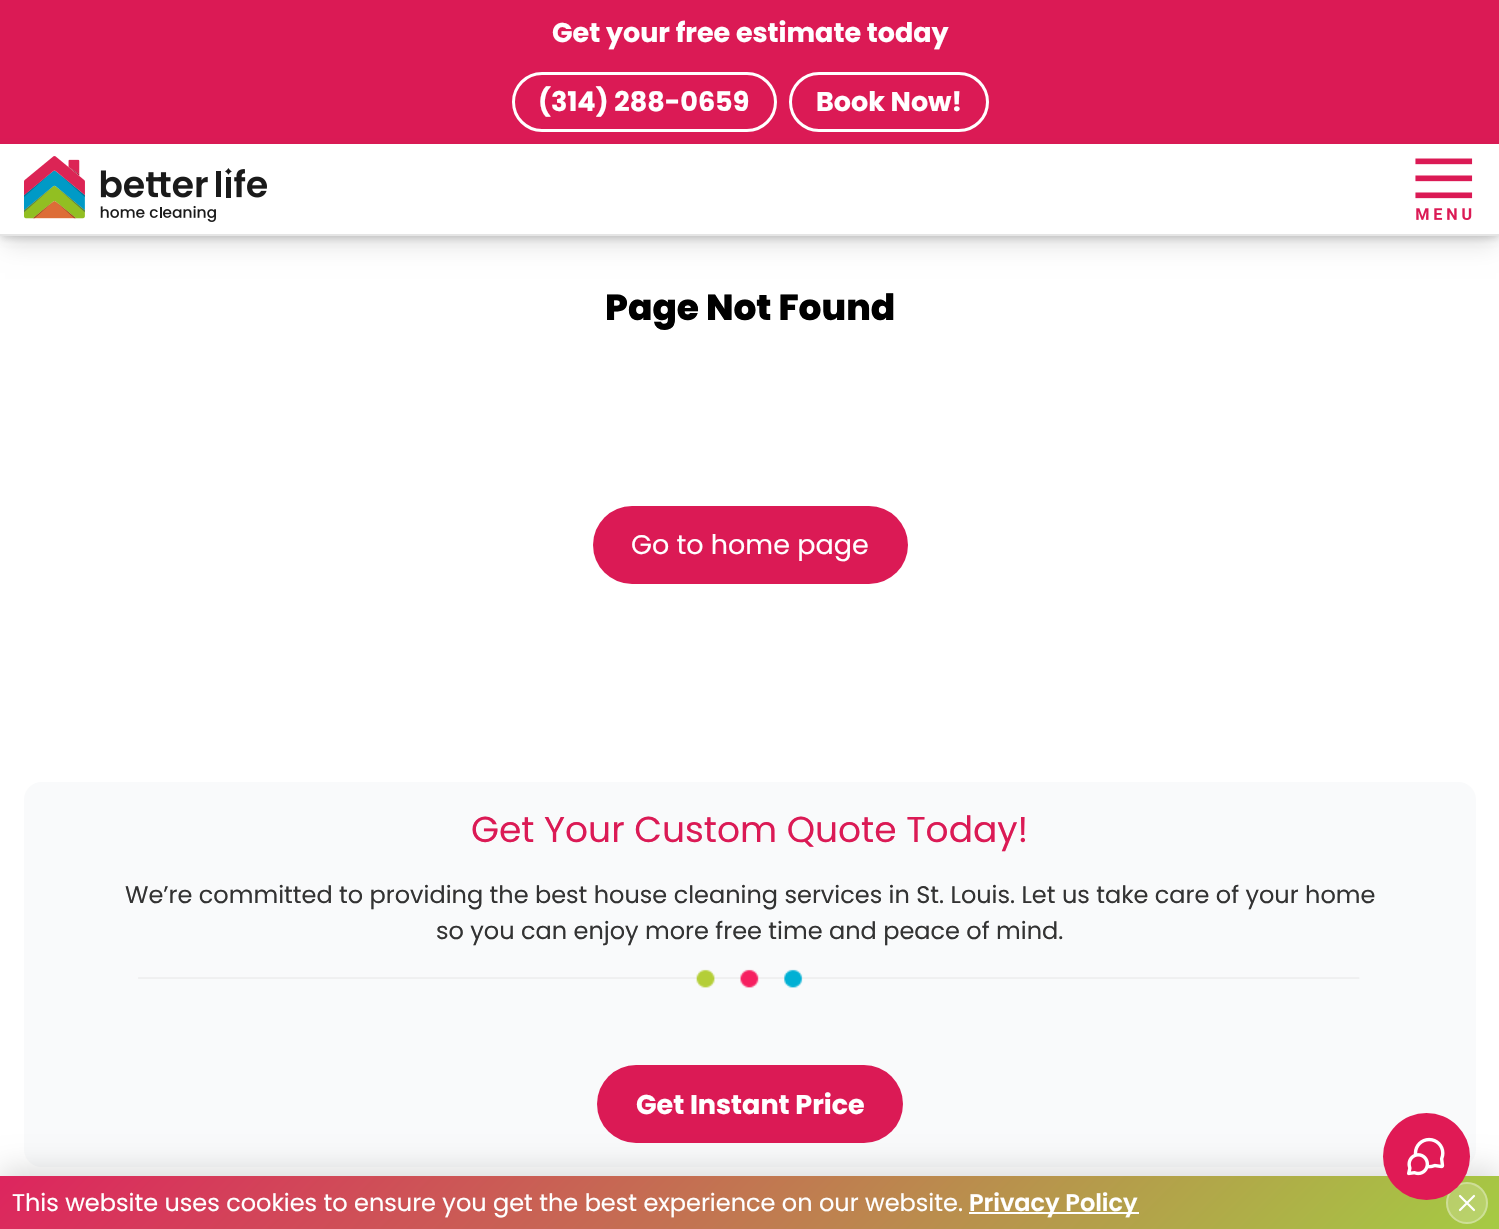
void draw(SkCanvas* canvas) {
    SkPaint paint;
    paint.setAntiAlias(true);
    auto face = [&](const char* family, int weight, float size, bool italic = false) {
        SkFontStyle style(weight, SkFontStyle::kNormal_Width,
            italic ? SkFontStyle::kItalic_Slant : SkFontStyle::kUpright_Slant);
        SkFont result(fontMgr->matchFamilyStyle(family, style), size);
        result.setSubpixel(true);
        return result;
    };
    auto write = [&](const char* s, float x, float y, const SkFont& font, SkColor color) {
        SkPaint ink(SkColor4f::FromColor(color));
        ink.setAntiAlias(true);
        canvas->drawString(s, x, y, font, ink);
    };
    auto block = [&](float x, float y, float w, float h, SkColor color) {
        SkPaint ink(SkColor4f::FromColor(color));
        ink.setAntiAlias(true);
        canvas->drawRect(SkRect::MakeXYWH(x, y, w, h), ink);
    };
    auto card = [&](float x, float y, float w, float h, float radius, SkColor color) {
        SkPaint ink(SkColor4f::FromColor(color));
        ink.setAntiAlias(true);
        canvas->drawRoundRect(SkRect::MakeXYWH(x, y, w, h), radius, radius, ink);
    };
    auto paste = [&](const char* path, float x, float y, float w, float h) {
        auto image = SkImages::DeferredFromEncodedData(SkData::MakeFromFileName(path));
        canvas->drawImageRect(image, SkRect::MakeXYWH(x, y, w, h), SkSamplingOptions());
    };
    canvas->clear(SK_ColorWHITE);
    paint.setColor(SkColorSetARGB(26, 0, 0, 0));
    paint.setMaskFilter(SkMaskFilter::MakeBlur(kNormal_SkBlurStyle, 4.5f));
    canvas->drawRect(SkRect::MakeXYWH(6, 12, 1488, 224), paint);
    paint.setMaskFilter(nullptr);
    paint.setMaskFilter(SkMaskFilter::MakeBlur(kNormal_SkBlurStyle, 11));
    canvas->drawRect(SkRect::MakeXYWH(5, 20, 1491, 226), paint);
    paint.setMaskFilter(nullptr);
    block(0, 0, 1499, 144, SkColorSetRGB(219, 26, 85));
    auto kFont1 = face("Poppins", 700, 27);
    write("Get your free estimate today", 552, 42, kFont1, SK_ColorWHITE);
    paint.setStyle(SkPaint::kStroke_Style);
    paint.setStrokeWidth(3);
    paint.setColor(SK_ColorWHITE);
    canvas->drawRoundRect(SkRect::MakeXYWH(513.5f, 73.5f, 262, 57), 28.5f, 28.5f, paint);
    write("(314) 288-0659", 538, 111, kFont1, SK_ColorWHITE);
    canvas->drawRoundRect(SkRect::MakeXYWH(790.5f, 73.5f, 197, 57), 28.5f, 28.5f, paint);
    write("Book Now!", 816, 111, kFont1, SK_ColorWHITE);
    paint.setStyle(SkPaint::kFill_Style);
    paint.setColor(SkColorSetARGB(26, 0, 0, 0));
    paint.setMaskFilter(SkMaskFilter::MakeBlur(kNormal_SkBlurStyle, 3));
    canvas->drawRect(SkRect::MakeXYWH(0, 147, 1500, 92), paint);
    paint.setMaskFilter(nullptr);
    block(0, 144, 1499, 90, SK_ColorWHITE);
    paste("pic1.png", 24, 156, 243, 66);
    paste("pic2.png", 1415, 158, 58, 62);
    block(0, 234, 1499, 2, SkColorSetRGB(229, 229, 229));
    auto kFont2 = face("Poppins", 800, 36);
    write("Page Not Found", 605, 320, kFont2, SK_ColorBLACK);
    card(593, 506, 315, 78, 39, SkColorSetRGB(219, 26, 85));
    auto kFont3 = face("Poppins", 400, 27);
    write("Go to home page", 631, 554, kFont3, SK_ColorWHITE);
    card(24, 782, 1452, 385, 18, SkColorSetRGB(249, 250, 251));
    auto kFont4 = face("Poppins", 400, 36);
    write("Get Your Custom Quote Today!", 471, 842, kFont4, SkColorSetRGB(219, 26, 85));
    auto kFont5 = face("Poppins", 400, 24);
    write("We’re committed to providing the best house cleaning services in St. Louis. Let us take care of your home", 125, 903, kFont5, SkColorSetRGB(51, 51, 51));
    write("so you can enjoy more free time and peace of mind.", 436, 939, kFont5, SkColorSetRGB(51, 51, 51));
    paste("pic3.png", 138, 969, 1222, 19);
    card(597, 1065, 306, 78, 39, SkColorSetRGB(219, 26, 85));
    write("Get Instant Price", 636, 1114, kFont1, SK_ColorWHITE);
    paint.setColor(SkColorSetARGB(38, 0, 0, 0));
    paint.setMaskFilter(SkMaskFilter::MakeBlur(kNormal_SkBlurStyle, 15));
    canvas->drawRect(SkRect::MakeXYWH(0, 1170, 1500, 54), paint);
    paint.setMaskFilter(nullptr);
    {
        const SkColor colors[] = {SkColorSetRGB(221, 37, 94), SkColorSetRGB(165, 203, 67)};
        const float stops[] = {0, 1};
        const SkPoint ends[] = {{362, 815}, {1139, 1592}};
        paint.setShader(SkGradientShader::MakeLinear(ends, colors, stops, 2, SkTileMode::kClamp));
        paint.setAlpha(255);
    }
    canvas->drawRect(SkRect::MakeXYWH(0, 1176, 1499, 53), paint);
    paint.setShader(nullptr);
    paint.setColor(SkColorSetARGB(51, 255, 255, 255));
    canvas->drawCircle(1467, 1203, 21, paint);
    paint.setStyle(SkPaint::kStroke_Style);
    paint.setStrokeWidth(2);
    paint.setColor(SkColorSetARGB(77, 255, 255, 255));
    canvas->drawCircle(1467, 1203, 20, paint);
    paint.setStrokeWidth(2.2f);
    paint.setStrokeCap(SkPaint::kRound_Cap);
    paint.setStrokeJoin(SkPaint::kRound_Join);
    paint.setColor(SK_ColorWHITE);
    canvas->drawPath(SkPathBuilder().moveTo(1474, 1196).lineTo(1460, 1210).moveTo(1460, 1196).lineTo(1474, 1210).detach(), paint);
    paint.setStyle(SkPaint::kFill_Style);
    paint.setColor(SkColorSetRGB(224, 26, 85));
    canvas->drawCircle(1426.5f, 1156.5f, 43.5f, paint);
    paste("pic4.png", 1407, 1137, 38, 39);
    write("This website uses cookies to ensure you get the best experience on our website.", 12, 1211, kFont5, SK_ColorWHITE);
    block(969, 1212, 170, 2, SK_ColorWHITE);
    auto kFont6 = face("Poppins", 600, 24);
    write("Privacy Policy", 969, 1211, kFont6, SK_ColorWHITE);
}
